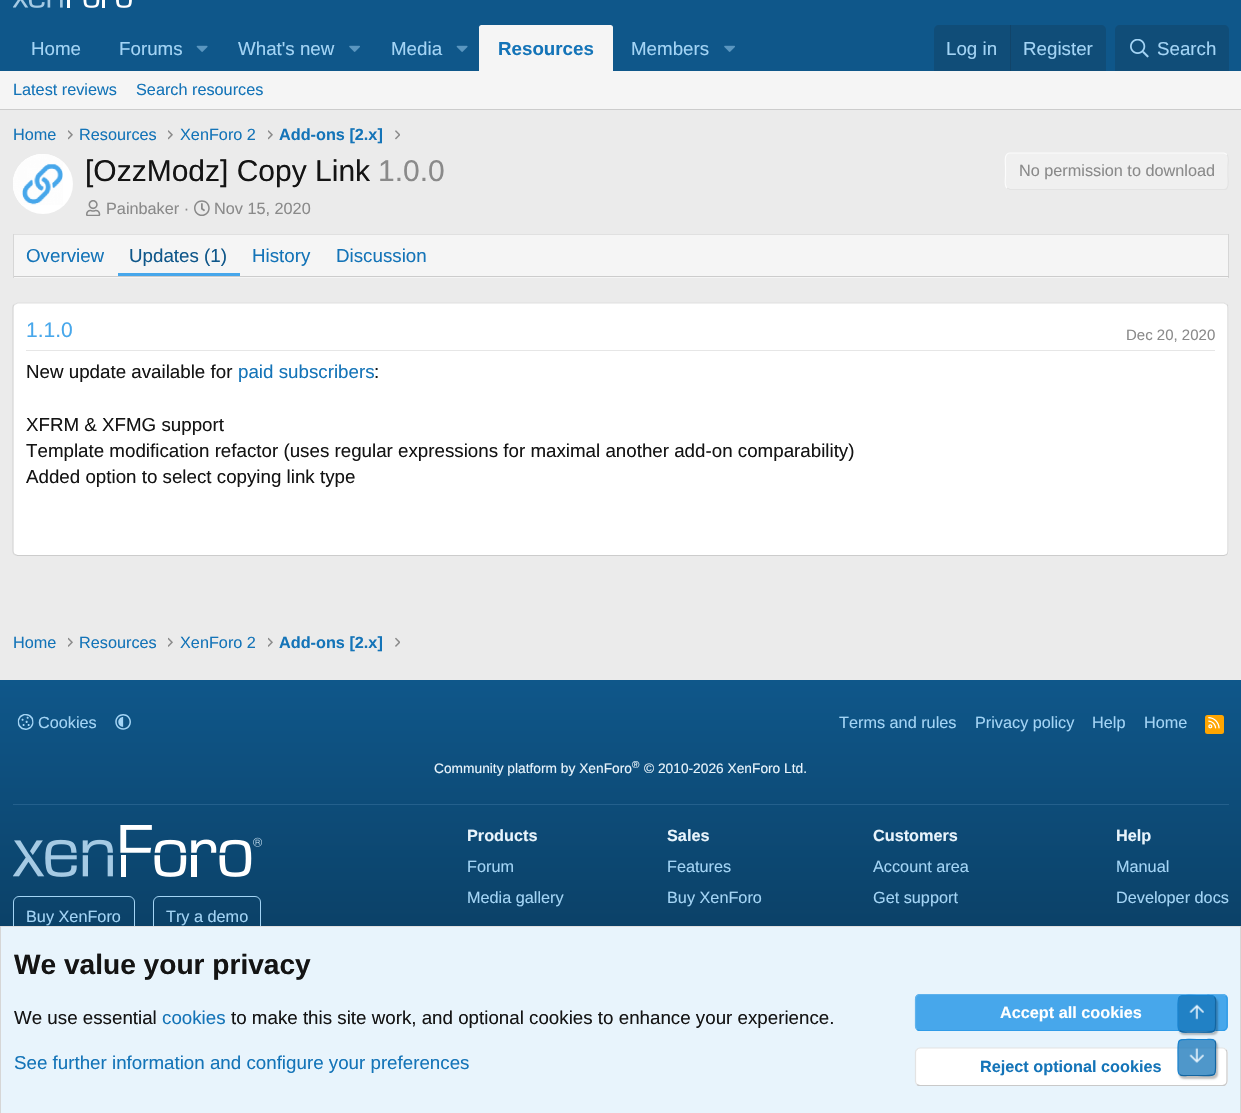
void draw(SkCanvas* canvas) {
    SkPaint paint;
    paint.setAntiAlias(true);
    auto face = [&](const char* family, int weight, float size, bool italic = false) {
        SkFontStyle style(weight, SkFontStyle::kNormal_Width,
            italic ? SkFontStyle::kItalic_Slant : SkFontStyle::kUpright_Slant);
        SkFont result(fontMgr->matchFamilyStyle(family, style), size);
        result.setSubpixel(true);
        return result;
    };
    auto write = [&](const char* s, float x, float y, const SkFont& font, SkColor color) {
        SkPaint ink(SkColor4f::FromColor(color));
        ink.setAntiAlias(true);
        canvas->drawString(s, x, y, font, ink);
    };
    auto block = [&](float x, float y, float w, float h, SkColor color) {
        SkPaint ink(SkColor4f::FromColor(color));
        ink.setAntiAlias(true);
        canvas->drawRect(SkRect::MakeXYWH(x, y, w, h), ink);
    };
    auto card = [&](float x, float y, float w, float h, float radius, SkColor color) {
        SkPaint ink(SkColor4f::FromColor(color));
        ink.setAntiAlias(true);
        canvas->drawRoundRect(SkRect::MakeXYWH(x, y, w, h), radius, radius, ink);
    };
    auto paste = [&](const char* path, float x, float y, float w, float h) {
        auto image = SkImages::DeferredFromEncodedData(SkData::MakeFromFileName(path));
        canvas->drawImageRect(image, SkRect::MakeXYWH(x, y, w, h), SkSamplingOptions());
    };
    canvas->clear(SkColorSetRGB(235, 235, 235));
    block(0, 0, 1241, 71, SkColorSetRGB(15, 87, 138));
    paste("pic1.png", 13, 0, 119, 8);
    auto kFont1 = face("Liberation Sans", 400, 18.75f);
    write("Home", 31, 55, kFont1, SkColorSetRGB(163, 212, 245));
    write("Forums", 119, 55, kFont1, SkColorSetRGB(163, 212, 245));
    paste("pic2.png", 196, 45, 12, 7);
    write("What's new", 238, 55, kFont1, SkColorSetRGB(163, 212, 245));
    paste("pic3.png", 349, 45, 11, 7);
    write("Media", 391, 55, kFont1, SkColorSetRGB(163, 212, 245));
    paste("pic2.png", 456, 45, 12, 7);
    paint.setColor(SkColorSetRGB(245, 245, 245));
    canvas->drawPath(SkPathBuilder().moveTo(481.5f, 25).lineTo(610.5f, 25).cubicTo(612, 25, 613, 26, 613, 27.5f).lineTo(613, 71).lineTo(479, 71).lineTo(479, 27.5f).cubicTo(479, 26, 480, 25, 481.5f, 25).close().detach(), paint);
    auto kFont2 = face("Liberation Sans", 700, 18.75f);
    write("Resources", 498, 55, kFont2, SkColorSetRGB(20, 116, 184));
    write("Members", 631, 55, kFont1, SkColorSetRGB(163, 212, 245));
    paste("pic3.png", 724, 45, 11, 7);
    paint.setColor(SkColorSetRGB(16, 77, 120));
    canvas->drawPath(SkPathBuilder().moveTo(939, 25).lineTo(1101, 25).cubicTo(1104, 25, 1106, 27, 1106, 30).lineTo(1106, 71).lineTo(934, 71).lineTo(934, 30).cubicTo(934, 27, 936, 25, 939, 25).close().detach(), paint);
    write("Log in", 946, 55, kFont1, SkColorSetRGB(163, 212, 245));
    block(1010, 25, 1, 46, SkColorSetRGB(17, 68, 105));
    write("Register", 1023, 55, kFont1, SkColorSetRGB(163, 212, 245));
    canvas->drawPath(SkPathBuilder().moveTo(1120, 25).lineTo(1224, 25).cubicTo(1227, 25, 1229, 27, 1229, 30).lineTo(1229, 71).lineTo(1115, 71).lineTo(1115, 30).cubicTo(1115, 27, 1117, 25, 1120, 25).close().detach(), paint);
    paste("pic4.png", 1130, 39, 19, 19);
    write("Search", 1157, 55, kFont1, SkColorSetRGB(163, 212, 245));
    block(0, 71, 1241, 38, SkColorSetRGB(245, 245, 245));
    block(0, 109, 1241, 1, SkColorSetRGB(204, 204, 204));
    auto kFont3 = face("Liberation Sans", 400, 16.25f);
    write("Latest reviews", 13, 95, kFont3, SkColorSetRGB(20, 116, 184));
    write("Search resources", 136, 95, kFont3, SkColorSetRGB(20, 116, 184));
    write("Home", 13, 140, kFont3, SkColorSetRGB(20, 116, 184));
    paste("pic5.png", 68, 130, 5, 10);
    write("Resources", 79, 140, kFont3, SkColorSetRGB(20, 116, 184));
    paste("pic5.png", 168, 130, 5, 10);
    write("XenForo 2", 180, 140, kFont3, SkColorSetRGB(20, 116, 184));
    paste("pic5.png", 268, 130, 5, 10);
    auto kFont4 = face("Liberation Sans", 700, 16.25f);
    write("Add-ons [2.x]", 279, 140, kFont4, SkColorSetRGB(20, 116, 184));
    paste("pic6.png", 395, 130, 5, 10);
    paint.setColor(SK_ColorWHITE);
    canvas->drawCircle(43, 184, 30, paint);
    paste("pic7.png", 13, 154, 50, 51);
    auto kFont5 = face("Liberation Sans", 400, 30);
    write("[OzzModz] Copy Link", 85, 181, kFont5, SkColorSetRGB(20, 20, 20));
    write("1.0.0", 378, 181, kFont5, SkColorSetRGB(138, 138, 138));
    card(1005, 153, 224, 37, 5, SkColorSetRGB(240, 240, 240));
    paint.setStyle(SkPaint::kStroke_Style);
    paint.setStrokeWidth(1.2f);
    paint.setColor(SkColorSetRGB(227, 227, 227));
    canvas->drawPath(SkPathBuilder().moveTo(1227, 154.5f).cubicTo(1229.5f, 157, 1228, 163.5f, 1228, 166.5f).lineTo(1228, 176).cubicTo(1228, 179, 1230, 189.5f, 1224, 189.5f).lineTo(1010, 189.5f).lineTo(1007, 188).detach(), paint);
    paint.setColor(SkColorSetRGB(252, 252, 252));
    canvas->drawPath(SkPathBuilder().moveTo(1007, 188).cubicTo(1004, 185.5f, 1005.5f, 179, 1005.5f, 176).lineTo(1005.5f, 166.5f).cubicTo(1005.5f, 163.5f, 1003.5f, 153, 1010, 153).lineTo(1224, 153).lineTo(1227, 154.5f).detach(), paint);
    write("No permission to download", 1019, 176, kFont3, SkColorSetRGB(138, 138, 138));
    paste("pic8.png", 86, 200, 15, 16);
    write("Painbaker ·", 106, 214, kFont3, SkColorSetRGB(138, 138, 138));
    paste("pic9.png", 194, 200, 16, 16);
    write("Nov 15, 2020", 214, 214, kFont3, SkColorSetRGB(138, 138, 138));
    block(14, 235, 1214, 43, SkColorSetRGB(245, 245, 245));
    block(13, 234, 1216, 1, SkColorSetRGB(224, 224, 224));
    block(1228, 234, 1, 44, SkColorSetRGB(214, 214, 214));
    block(13, 276, 1216, 1, SkColorSetRGB(204, 204, 204));
    block(13, 234, 1, 44, SkColorSetRGB(214, 214, 214));
    write("Overview", 26, 262, kFont1, SkColorSetRGB(20, 116, 184));
    block(118, 273, 122, 3, SkColorSetRGB(71, 167, 235));
    write("Updates (1)", 129, 262, kFont1, SkColorSetRGB(15, 87, 138));
    write("History", 252, 262, kFont1, SkColorSetRGB(20, 116, 184));
    write("Discussion", 336, 262, kFont1, SkColorSetRGB(20, 116, 184));
    card(13, 303, 1216, 253, 5, SK_ColorWHITE);
    paint.setColor(SkColorSetRGB(224, 224, 224));
    canvas->drawPath(SkPathBuilder().moveTo(14.5f, 304.5f).lineTo(17.5f, 303).lineTo(1224, 303).lineTo(1227, 304.5f).detach(), paint);
    paint.setColor(SkColorSetRGB(214, 214, 214));
    canvas->drawPath(SkPathBuilder().moveTo(1227, 304.5f).cubicTo(1227.5f, 305, 1228, 306.5f, 1228, 307.5f).lineTo(1228, 551).cubicTo(1228, 552.5f, 1227.5f, 553.5f, 1227, 554.5f).detach(), paint);
    paint.setColor(SkColorSetRGB(204, 204, 204));
    canvas->drawPath(SkPathBuilder().moveTo(1227, 554.5f).lineTo(1224, 555.5f).lineTo(17.5f, 555.5f).lineTo(14.5f, 554.5f).detach(), paint);
    paint.setColor(SkColorSetRGB(214, 214, 214));
    canvas->drawPath(SkPathBuilder().moveTo(14.5f, 554.5f).cubicTo(13.5f, 553.5f, 13, 552.5f, 13, 551).lineTo(13, 307.5f).cubicTo(13, 306.5f, 13.5f, 305, 14.5f, 304.5f).detach(), paint);
    block(26, 350, 1189, 1, SkColorSetRGB(230, 230, 230));
    auto kFont6 = face("Liberation Sans", 400, 21);
    write("1.1.0", 26, 337, kFont6, SkColorSetRGB(71, 167, 235));
    auto kFont7 = face("Liberation Sans", 400, 15);
    write("Dec 20, 2020", 1126, 340, kFont7, SkColorSetRGB(138, 138, 138));
    write("New update available for", 26, 378, kFont1, SkColorSetRGB(20, 20, 20));
    write("paid subscribers", 238, 378, kFont1, SkColorSetRGB(20, 116, 184));
    write(":", 374, 378, kFont1, SkColorSetRGB(20, 20, 20));
    write("XFRM & XFMG support", 26, 431, kFont1, SkColorSetRGB(20, 20, 20));
    write("Template modification refactor (uses regular expressions for maximal another add-on comparability)", 26, 457, kFont1, SkColorSetRGB(20, 20, 20));
    write("Added option to select copying link type", 26, 483, kFont1, SkColorSetRGB(20, 20, 20));
    write("Home", 13, 648, kFont3, SkColorSetRGB(20, 116, 184));
    paste("pic10.png", 68, 637, 5, 10);
    write("Resources", 79, 648, kFont3, SkColorSetRGB(20, 116, 184));
    paste("pic10.png", 168, 637, 5, 10);
    write("XenForo 2", 180, 648, kFont3, SkColorSetRGB(20, 116, 184));
    paste("pic10.png", 268, 637, 5, 10);
    write("Add-ons [2.x]", 279, 648, kFont4, SkColorSetRGB(20, 116, 184));
    paste("pic11.png", 395, 637, 5, 10);
    paint.setStyle(SkPaint::kFill_Style);
    {
        const SkColor colors[] = {SkColorSetRGB(9, 52, 83), SkColorSetRGB(15, 87, 138)};
        const float stops[] = {0, 1};
        const SkPoint ends[] = {{621, 1079}, {621, 680}};
        paint.setShader(SkGradientShader::MakeLinear(ends, colors, stops, 2, SkTileMode::kClamp));
        paint.setAlpha(255);
    }
    canvas->drawRect(SkRect::MakeXYWH(0, 680, 1241, 246), paint);
    paste("pic12.png", 17, 714, 17, 16);
    write("Cookies", 38, 728, kFont3, SkColorSetRGB(163, 212, 245));
    paste("pic13.png", 115, 714, 16, 16);
    write("Terms and rules", 839, 728, kFont3, SkColorSetRGB(163, 212, 245));
    write("Privacy policy", 975, 728, kFont3, SkColorSetRGB(163, 212, 245));
    write("Help", 1092, 728, kFont3, SkColorSetRGB(163, 212, 245));
    write("Home", 1144, 728, kFont3, SkColorSetRGB(163, 212, 245));
    card(1205, 715, 19, 19, 2.5f, SkColorSetRGB(255, 165, 0));
    paste("pic14.png", 1208, 717, 12, 12);
    block(13, 804, 1216, 1, SkColorSetRGB(36, 96, 140));
    auto kFont8 = face("Liberation Sans", 400, 13.75f);
    write("Community platform by XenForo", 434, 773, kFont8, SkColorSetRGB(232, 244, 252));
    auto kFont9 = face("Liberation Sans", 400, 10);
    write("®", 632, 768, kFont9, SkColorSetRGB(232, 244, 252));
    write("© 2010-2026 XenForo Ltd.", 644, 773, kFont8, SkColorSetRGB(232, 244, 252));
    write("Products", 467, 841, kFont4, SkColorSetRGB(232, 244, 252));
    write("Forum", 467, 872, kFont3, SkColorSetRGB(163, 212, 245));
    write("Media gallery", 467, 903, kFont3, SkColorSetRGB(163, 212, 245));
    write("Sales", 667, 841, kFont4, SkColorSetRGB(232, 244, 252));
    write("Features", 667, 872, kFont3, SkColorSetRGB(163, 212, 245));
    write("Buy XenForo", 667, 903, kFont3, SkColorSetRGB(163, 212, 245));
    write("Customers", 873, 841, kFont4, SkColorSetRGB(232, 244, 252));
    write("Account area", 873, 872, kFont3, SkColorSetRGB(163, 212, 245));
    write("Get support", 873, 903, kFont3, SkColorSetRGB(163, 212, 245));
    write("Help", 1116, 841, kFont4, SkColorSetRGB(232, 244, 252));
    write("Manual", 1116, 872, kFont3, SkColorSetRGB(163, 212, 245));
    write("Developer docs", 1116, 903, kFont3, SkColorSetRGB(163, 212, 245));
    paste("pic15.png", 13, 825, 249, 52);
    paint.setStyle(SkPaint::kStroke_Style);
    paint.setStrokeWidth(1);
    paint.setShader(nullptr);
    paint.setColor(SkColorSetRGB(163, 212, 245));
    canvas->drawRoundRect(SkRect::MakeXYWH(13.5f, 896.5f, 121, 41), 5.5f, 5.5f, paint);
    write("Buy XenForo", 26, 922, kFont3, SkColorSetRGB(163, 212, 245));
    canvas->drawRoundRect(SkRect::MakeXYWH(153.5f, 896.5f, 107, 41), 5.5f, 5.5f, paint);
    write("Try a demo", 166, 922, kFont3, SkColorSetRGB(163, 212, 245));
    block(1, 927, 1239, 186, SkColorSetRGB(232, 244, 252));
    block(0, 926, 1241, 1, SkColorSetRGB(224, 224, 224));
    block(1240, 926, 1, 187, SkColorSetRGB(214, 214, 214));
    block(0, 926, 1, 187, SkColorSetRGB(214, 214, 214));
    auto kFont10 = face("Liberation Sans", 700, 28.1f);
    write("We value your privacy", 14, 974, kFont10, SkColorSetRGB(20, 20, 20));
    write("We use essential", 14, 1024, kFont1, SkColorSetRGB(20, 20, 20));
    write("cookies", 162, 1024, kFont1, SkColorSetRGB(20, 116, 184));
    write("to make this site work, and optional cookies to enhance your experience.", 231, 1024, kFont1, SkColorSetRGB(20, 20, 20));
    write("See further information and configure your preferences", 14, 1069, kFont1, SkColorSetRGB(20, 116, 184));
    card(915, 994, 313, 37, 5, SkColorSetRGB(71, 167, 235));
    paint.setStrokeWidth(1.2f);
    paint.setColor(SkColorSetRGB(48, 156, 232));
    canvas->drawPath(SkPathBuilder().moveTo(1225.5f, 995.5f).cubicTo(1226.5f, 996.5f, 1227, 997.5f, 1227, 999).lineTo(1227, 1026).cubicTo(1227, 1027.5f, 1226.5f, 1028.5f, 1225.5f, 1029.5f).cubicTo(1225, 1030, 1223.5f, 1030.5f, 1222.5f, 1030.5f).lineTo(920, 1030.5f).cubicTo(919, 1030.5f, 917.5f, 1030, 917, 1029.5f).detach(), paint);
    paint.setColor(SkColorSetRGB(94, 178, 237));
    canvas->drawPath(SkPathBuilder().moveTo(917, 1029.5f).cubicTo(916, 1028.5f, 915.5f, 1027.5f, 915.5f, 1026).lineTo(915.5f, 999).cubicTo(915.5f, 997.5f, 916, 996.5f, 917, 995.5f).cubicTo(917.5f, 995, 919, 994.5f, 920, 994.5f).lineTo(1222.5f, 994.5f).cubicTo(1223.5f, 994.5f, 1225, 995, 1225.5f, 995.5f).detach(), paint);
    write("Accept all cookies", 1000, 1018, kFont4, SK_ColorWHITE);
    card(915, 1048, 313, 38, 5, SK_ColorWHITE);
    paint.setColor(SkColorSetRGB(201, 201, 201));
    canvas->drawPath(SkPathBuilder().moveTo(1225.5f, 1049.5f).cubicTo(1226.5f, 1050, 1227, 1051.5f, 1227, 1052.5f).lineTo(1227, 1081).cubicTo(1227, 1082.5f, 1226.5f, 1083.5f, 1225.5f, 1084.5f).cubicTo(1225, 1085, 1223.5f, 1085.5f, 1222.5f, 1085.5f).lineTo(920, 1085.5f).cubicTo(919, 1085.5f, 917.5f, 1085, 917, 1084.5f).detach(), paint);
    paint.setColor(SkColorSetRGB(227, 227, 227));
    canvas->drawPath(SkPathBuilder().moveTo(917, 1084.5f).cubicTo(916, 1083.5f, 915.5f, 1082.5f, 915.5f, 1081).lineTo(915.5f, 1052.5f).cubicTo(915.5f, 1051.5f, 916, 1050, 917, 1049.5f).cubicTo(917.5f, 1048.5f, 919, 1048, 920, 1048).lineTo(1222.5f, 1048).cubicTo(1223.5f, 1048, 1225, 1048.5f, 1225.5f, 1049.5f).detach(), paint);
    write("Reject optional cookies", 980, 1072, kFont4, SkColorSetRGB(20, 116, 184));
    canvas->save();
    canvas->clipPath(SkPathBuilder(SkPathFillType::kEvenOdd).moveTo(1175, 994).lineTo(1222, 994).lineTo(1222, 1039).lineTo(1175, 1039).close().moveTo(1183, 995).lineTo(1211, 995).cubicTo(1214, 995, 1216, 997, 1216, 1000).lineTo(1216, 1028).cubicTo(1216, 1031, 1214, 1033, 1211, 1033).lineTo(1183, 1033).cubicTo(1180, 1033, 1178, 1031, 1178, 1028).lineTo(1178, 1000).cubicTo(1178, 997, 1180, 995, 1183, 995).close().detach(), true);
    paint.setStyle(SkPaint::kFill_Style);
    paint.setColor(SkColorSetARGB(64, 0, 0, 0));
    paint.setMaskFilter(SkMaskFilter::MakeBlur(kNormal_SkBlurStyle, 1));
    canvas->drawRoundRect(SkRect::MakeXYWH(1179, 998, 39, 37), 5, 5, paint);
    paint.setMaskFilter(nullptr);
    canvas->restore();
    card(1178, 995, 38, 38, 5, SkColorSetARGB(191, 20, 116, 184));
    paint.setStyle(SkPaint::kStroke_Style);
    paint.setColor(SkColorSetRGB(18, 101, 161));
    canvas->drawPath(SkPathBuilder().moveTo(1214.5f, 997).cubicTo(1216.5f, 999, 1215.5f, 1002, 1215.5f, 1004.5f).lineTo(1215.5f, 1014).cubicTo(1215.5f, 1035, 1218, 1032, 1197, 1032).lineTo(1187.5f, 1032).cubicTo(1185, 1032, 1181.5f, 1032.5f, 1179.5f, 1030.5f).detach(), paint);
    paint.setColor(SkColorSetRGB(23, 130, 207));
    canvas->drawPath(SkPathBuilder().moveTo(1179.5f, 1030.5f).cubicTo(1177.5f, 1028.5f, 1178, 1025.5f, 1178, 1023).lineTo(1178, 1014).cubicTo(1178, 992.5f, 1175.5f, 995.5f, 1197, 995.5f).lineTo(1206.5f, 995.5f).cubicTo(1209, 995.5f, 1212.5f, 995, 1214.5f, 997).detach(), paint);
    paste("pic16.png", 1189, 1004, 15, 16);
    canvas->save();
    canvas->clipPath(SkPathBuilder(SkPathFillType::kEvenOdd).moveTo(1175, 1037).lineTo(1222, 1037).lineTo(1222, 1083).lineTo(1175, 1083).close().moveTo(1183, 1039).lineTo(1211, 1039).cubicTo(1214, 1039, 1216, 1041, 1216, 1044).lineTo(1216, 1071).cubicTo(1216, 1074, 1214, 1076, 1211, 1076).lineTo(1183, 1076).cubicTo(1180, 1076, 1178, 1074, 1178, 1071).lineTo(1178, 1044).cubicTo(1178, 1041, 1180, 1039, 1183, 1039).close().detach(), true);
    paint.setStyle(SkPaint::kFill_Style);
    paint.setColor(SkColorSetARGB(64, 0, 0, 0));
    paint.setMaskFilter(SkMaskFilter::MakeBlur(kNormal_SkBlurStyle, 1));
    canvas->drawRoundRect(SkRect::MakeXYWH(1179, 1041, 39, 38), 5, 5, paint);
    paint.setMaskFilter(nullptr);
    canvas->restore();
    card(1178, 1039, 38, 37, 5, SkColorSetARGB(191, 20, 116, 184));
    paint.setStyle(SkPaint::kStroke_Style);
    paint.setColor(SkColorSetRGB(18, 101, 161));
    canvas->drawPath(SkPathBuilder().moveTo(1214.5f, 1040.5f).cubicTo(1216.5f, 1042.5f, 1215.5f, 1046, 1215.5f, 1048.5f).lineTo(1215.5f, 1057.5f).cubicTo(1215.5f, 1078.5f, 1218, 1075.5f, 1197, 1075.5f).lineTo(1187.5f, 1075.5f).cubicTo(1185, 1075.5f, 1181.5f, 1076.5f, 1179.5f, 1074.5f).detach(), paint);
    paint.setColor(SkColorSetRGB(23, 130, 207));
    canvas->drawPath(SkPathBuilder().moveTo(1179.5f, 1074.5f).cubicTo(1177.5f, 1072.5f, 1178, 1069, 1178, 1066.5f).lineTo(1178, 1057.5f).cubicTo(1178, 1036.5f, 1175.5f, 1039.5f, 1197, 1039.5f).lineTo(1206.5f, 1039.5f).cubicTo(1209, 1039.5f, 1212.5f, 1038.5f, 1214.5f, 1040.5f).detach(), paint);
    paste("pic17.png", 1189, 1047, 15, 16);
}
